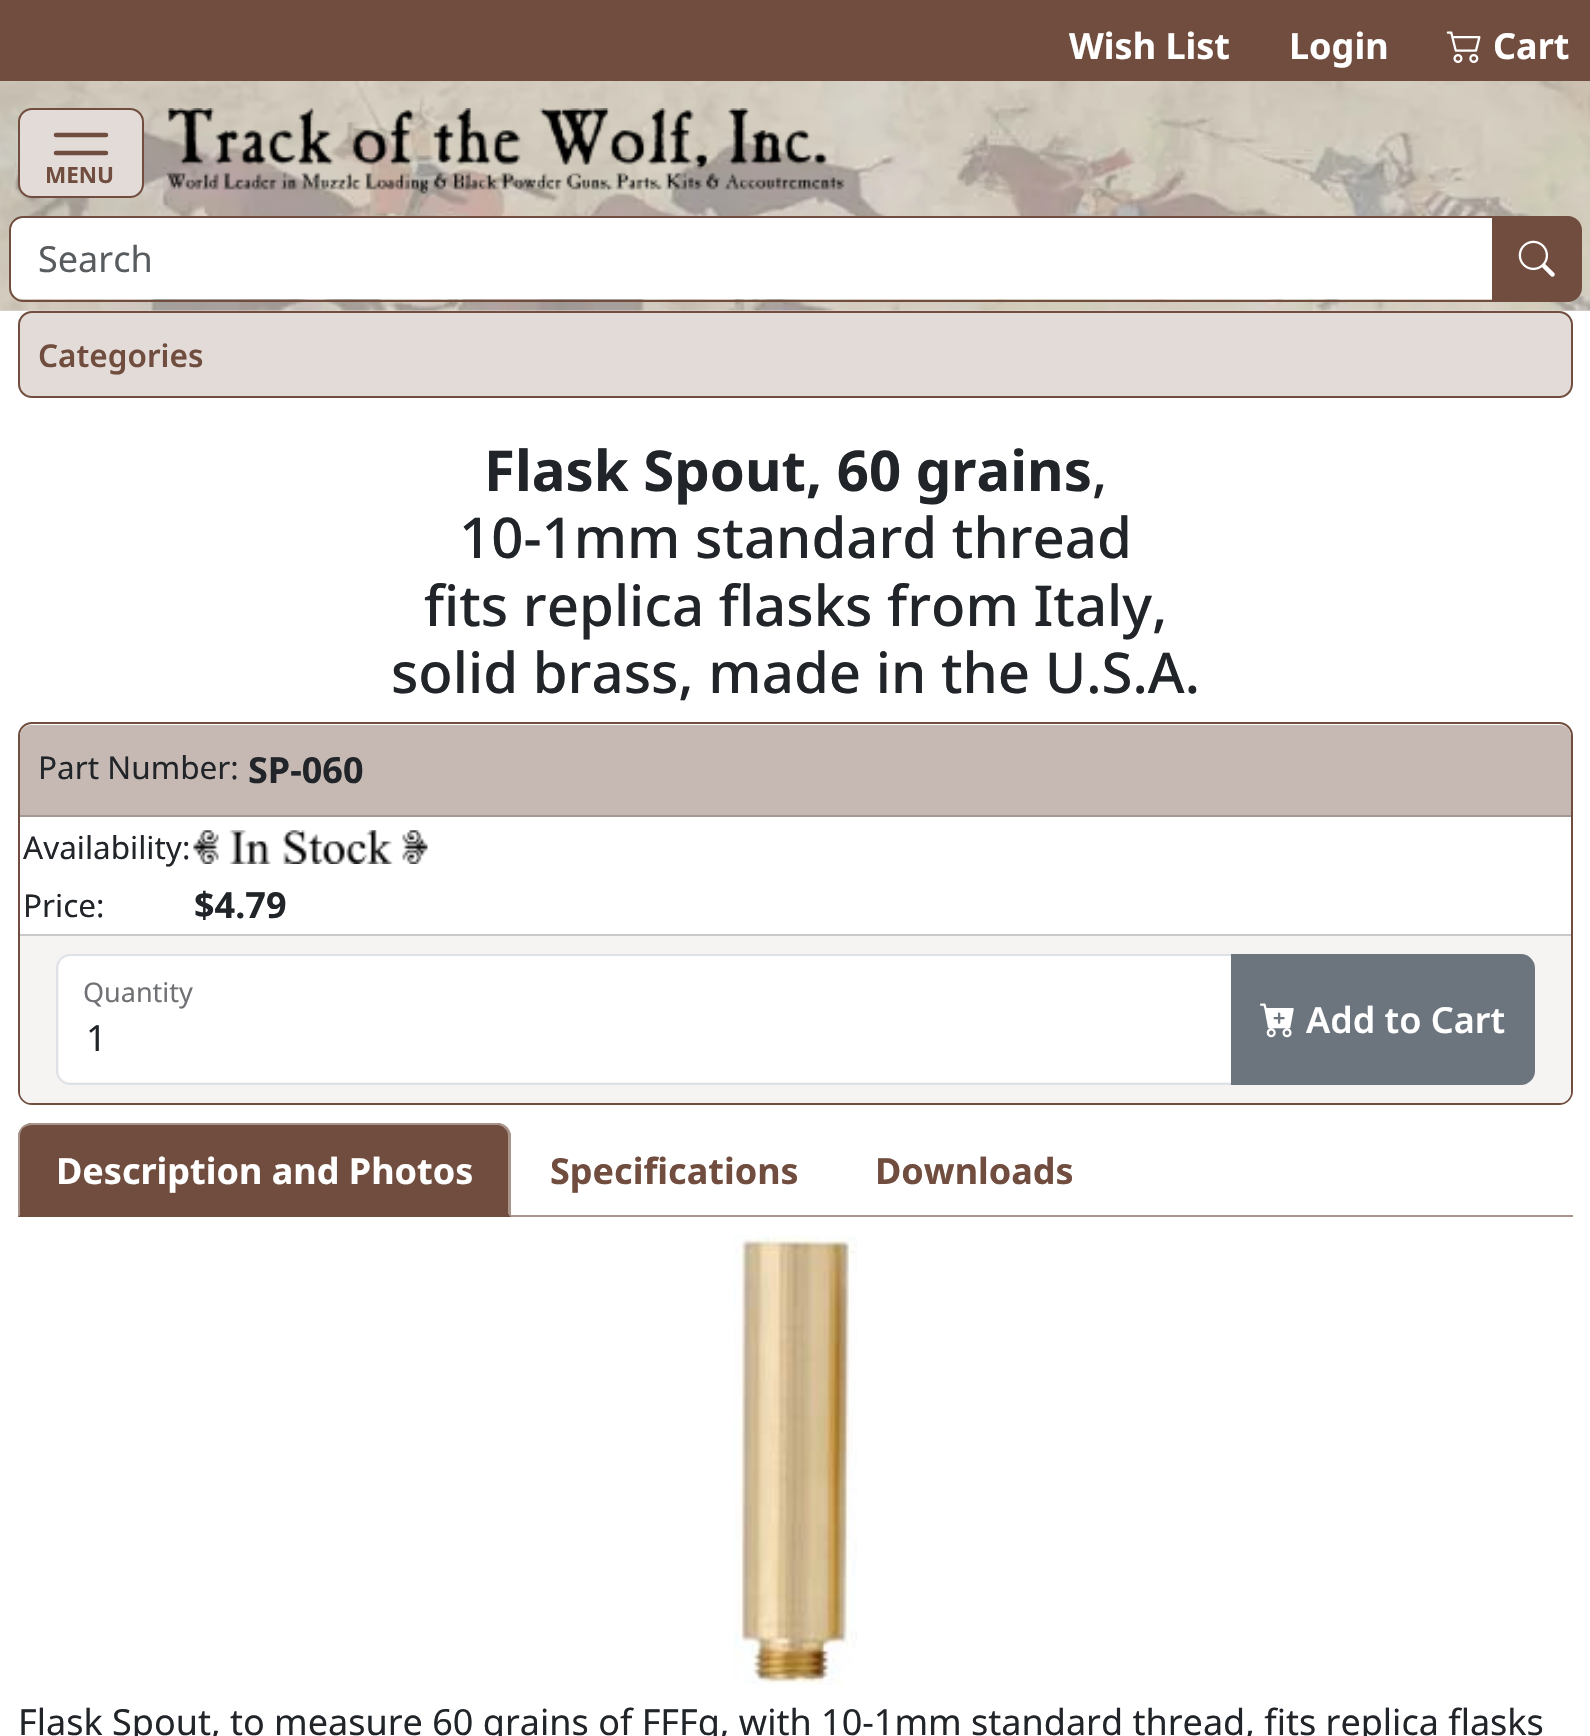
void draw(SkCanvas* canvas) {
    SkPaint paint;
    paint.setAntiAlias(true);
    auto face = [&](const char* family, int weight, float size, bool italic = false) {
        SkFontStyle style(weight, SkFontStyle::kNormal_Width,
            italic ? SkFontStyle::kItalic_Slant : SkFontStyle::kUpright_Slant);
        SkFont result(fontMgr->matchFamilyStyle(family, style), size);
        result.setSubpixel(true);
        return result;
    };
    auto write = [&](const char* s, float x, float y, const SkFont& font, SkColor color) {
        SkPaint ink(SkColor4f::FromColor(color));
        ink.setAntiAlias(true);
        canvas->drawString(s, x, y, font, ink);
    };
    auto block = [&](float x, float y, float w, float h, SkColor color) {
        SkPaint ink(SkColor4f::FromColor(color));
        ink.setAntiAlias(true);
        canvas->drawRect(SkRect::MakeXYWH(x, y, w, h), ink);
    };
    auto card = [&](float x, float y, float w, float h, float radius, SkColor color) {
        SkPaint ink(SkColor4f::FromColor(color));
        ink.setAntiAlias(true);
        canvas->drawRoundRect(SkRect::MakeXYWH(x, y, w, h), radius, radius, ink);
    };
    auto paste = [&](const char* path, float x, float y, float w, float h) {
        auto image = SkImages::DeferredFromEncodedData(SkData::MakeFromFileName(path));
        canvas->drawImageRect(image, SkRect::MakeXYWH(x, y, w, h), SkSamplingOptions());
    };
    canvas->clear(SK_ColorWHITE);
    block(0, 0, 1590, 81, SkColorSetRGB(112, 77, 62));
    auto kFont1 = face("Noto Sans", 700, 36);
    write("Wish List", 1069, 59, kFont1, SK_ColorWHITE);
    write("Login", 1289, 59, kFont1, SK_ColorWHITE);
    paste("pic1.png", 1446, 31, 35, 32);
    write("Cart", 1493, 59, kFont1, SK_ColorWHITE);
    block(0, 310, 1590, 1, SkColorSetRGB(226, 219, 216));
    paste("pic2.png", 0, 81, 1590, 230);
    paint.setColor(SkColorSetRGB(226, 219, 216));
    canvas->drawRoundRect(SkRect::MakeXYWH(19, 109, 124, 88), 13, 13, paint);
    paint.setStyle(SkPaint::kStroke_Style);
    paint.setStrokeWidth(2);
    paint.setColor(SkColorSetRGB(112, 77, 62));
    canvas->drawRoundRect(SkRect::MakeXYWH(19, 109, 124, 88), 13, 13, paint);
    paint.setStrokeWidth(4.5f);
    paint.setStrokeCap(SkPaint::kRound_Cap);
    canvas->drawPath(SkPathBuilder().moveTo(56, 135).lineTo(106, 135).moveTo(56, 153).lineTo(106, 153).moveTo(56, 171).lineTo(106, 171).detach(), paint);
    card(45, 162, 70, 23, 11.5f, SkColorSetRGB(226, 219, 216));
    auto kFont2 = face("Noto Sans", 700, 22.5f);
    write("MENU", 45, 183, kFont2, SkColorSetRGB(112, 77, 62));
    paste("pic3.png", 166, 108, 679, 87);
    paint.setStyle(SkPaint::kFill_Style);
    paint.setColor(SK_ColorWHITE);
    canvas->drawPath(SkPathBuilder().moveTo(22, 218).lineTo(1492, 218).lineTo(1492, 299).lineTo(22, 299).cubicTo(16, 299, 11, 294, 11, 288).lineTo(11, 229).cubicTo(11, 223, 16, 218, 22, 218).close().detach(), paint);
    paint.setStyle(SkPaint::kStroke_Style);
    paint.setStrokeWidth(2);
    paint.setStrokeCap(SkPaint::kButt_Cap);
    paint.setColor(SkColorSetRGB(112, 77, 62));
    canvas->drawPath(SkPathBuilder().moveTo(23, 217).lineTo(1493, 217).lineTo(1493, 301).lineTo(23, 301).cubicTo(16, 301, 10, 295, 10, 288).lineTo(10, 230).cubicTo(10, 223, 16, 217, 23, 217).close().detach(), paint);
    auto kFont3 = face("Noto Sans", 400, 36);
    write("Search", 38, 272, kFont3, SkColorSetRGB(89, 92, 95));
    paint.setStyle(SkPaint::kFill_Style);
    canvas->drawPath(SkPathBuilder().moveTo(1492, 216).lineTo(1568, 216).cubicTo(1575.5f, 216, 1582, 222.5f, 1582, 230).lineTo(1582, 288).cubicTo(1582, 295.5f, 1575.5f, 302, 1568, 302).lineTo(1492, 302).close().detach(), paint);
    paste("pic4.png", 1518, 240, 37, 37);
    paint.setColor(SkColorSetRGB(226, 219, 216));
    canvas->drawRoundRect(SkRect::MakeXYWH(19, 312, 1553, 85), 13, 13, paint);
    paint.setStyle(SkPaint::kStroke_Style);
    paint.setColor(SkColorSetRGB(112, 77, 62));
    canvas->drawRoundRect(SkRect::MakeXYWH(19, 312, 1553, 85), 13, 13, paint);
    auto kFont4 = face("Noto Sans", 600, 31.5f);
    write("Categories", 38, 367, kFont4, SkColorSetRGB(112, 77, 62));
    auto kFont5 = face("Noto Sans", 700, 56.3f);
    write("Flask Spout, 60 grains", 484, 491, kFont5, SkColorSetRGB(33, 37, 41));
    auto kFont6 = face("Noto Sans", 500, 56.3f);
    write(",", 1092, 491, kFont6, SkColorSetRGB(33, 37, 41));
    write("10-1mm standard thread", 459, 558, kFont6, SkColorSetRGB(33, 37, 41));
    write("fits replica flasks from Italy,", 424, 626, kFont6, SkColorSetRGB(33, 37, 41));
    write("solid brass, made in the U.S.A.", 391, 693, kFont6, SkColorSetRGB(33, 37, 41));
    canvas->drawRoundRect(SkRect::MakeXYWH(19, 723, 1553, 381), 13, 13, paint);
    paint.setStyle(SkPaint::kFill_Style);
    paint.setColor(SkColorSetRGB(198, 184, 178));
    canvas->drawPath(SkPathBuilder().moveTo(31, 725).lineTo(1560, 725).cubicTo(1566, 725, 1571, 730, 1571, 736).lineTo(1571, 817).lineTo(20, 817).lineTo(20, 736).cubicTo(20, 730, 25, 725, 31, 725).close().detach(), paint);
    block(20, 815, 1551, 2, SkColorSetRGB(163, 152, 147));
    auto kFont7 = face("Noto Sans", 400, 31.5f);
    write("Part Number:", 38, 779, kFont7, SkColorSetRGB(33, 37, 41));
    write("SP-060", 248, 783, kFont1, SkColorSetRGB(33, 37, 41));
    write("Availability:", 23, 859, kFont7, SkColorSetRGB(33, 37, 41));
    paste("pic5.png", 193, 830, 235, 34);
    write("Price:", 23, 917, kFont7, SkColorSetRGB(33, 37, 41));
    write("$4.79", 194, 918, kFont1, SkColorSetRGB(33, 37, 41));
    paint.setColor(SkColorSetRGB(246, 244, 243));
    canvas->drawPath(SkPathBuilder().moveTo(20, 934).lineTo(1571, 934).lineTo(1571, 1092).cubicTo(1571, 1098, 1566, 1103, 1560, 1103).lineTo(31, 1103).cubicTo(25, 1103, 20, 1098, 20, 1092).close().detach(), paint);
    block(20, 934, 1551, 2, SkColorSetRGB(203, 201, 200));
    paint.setColor(SK_ColorWHITE);
    canvas->drawPath(SkPathBuilder().moveTo(70, 956).lineTo(1231, 956).lineTo(1231, 1082).lineTo(70, 1082).cubicTo(64, 1082, 59, 1077, 59, 1071).lineTo(59, 967).cubicTo(59, 961, 64, 956, 70, 956).close().detach(), paint);
    paint.setStyle(SkPaint::kStroke_Style);
    paint.setColor(SkColorSetRGB(222, 226, 230));
    canvas->drawPath(SkPathBuilder().moveTo(70, 955).lineTo(1232, 955).lineTo(1232, 1084).lineTo(70, 1084).cubicTo(63, 1084, 57, 1078, 57, 1071).lineTo(57, 968).cubicTo(57, 961, 63, 955, 70, 955).close().detach(), paint);
    auto kFont8 = face("Noto Sans", 400, 27);
    write("Quantity", 83, 1002, kFont8, SkColorSetRGB(111, 113, 116));
    paint.setStyle(SkPaint::kFill_Style);
    paint.setColor(SkColorSetRGB(108, 117, 125));
    canvas->drawPath(SkPathBuilder().moveTo(1232, 955).lineTo(1521, 955).cubicTo(1528, 955, 1534, 961, 1534, 968).lineTo(1534, 1071).cubicTo(1534, 1078, 1528, 1084, 1521, 1084).lineTo(1232, 1084).close().detach(), paint);
    paint.setStyle(SkPaint::kStroke_Style);
    canvas->drawPath(SkPathBuilder().moveTo(1232, 955).lineTo(1521, 955).cubicTo(1528, 955, 1534, 961, 1534, 968).lineTo(1534, 1071).cubicTo(1534, 1078, 1528, 1084, 1521, 1084).lineTo(1232, 1084).close().detach(), paint);
    paste("pic6.png", 1260, 1003, 34, 35);
    auto kFont9 = face("Noto Sans", 600, 36);
    write("Add to Cart", 1306, 1033, kFont9, SK_ColorWHITE);
    write("1", 86, 1051, kFont3, SkColorSetRGB(33, 37, 41));
    block(511, 1215, 1062, 2, SkColorSetRGB(169, 148, 139));
    paint.setStyle(SkPaint::kFill_Style);
    paint.setColor(SkColorSetRGB(112, 77, 62));
    canvas->drawPath(SkPathBuilder().moveTo(32, 1123).lineTo(497, 1123).cubicTo(504.5f, 1123, 511, 1129.5f, 511, 1137).lineTo(511, 1217).lineTo(18, 1217).lineTo(18, 1137).cubicTo(18, 1129.5f, 24.5f, 1123, 32, 1123).close().detach(), paint);
    paint.setColor(SkColorSetRGB(169, 148, 139));
    canvas->drawPath(SkPathBuilder().moveTo(32, 1123).cubicTo(28, 1123, 25, 1124, 22, 1127).lineTo(23, 1128).cubicTo(26, 1126, 29, 1125, 32, 1125).lineTo(497, 1125).cubicTo(500, 1125, 503, 1126, 505, 1129).lineTo(507, 1127).cubicTo(504, 1124, 501, 1123, 497, 1123).close().detach(), paint);
    canvas->drawPath(SkPathBuilder().moveTo(507, 1127).cubicTo(509, 1129, 510, 1131, 511, 1134).lineTo(511, 1217).lineTo(508, 1214).lineTo(508, 1136).cubicTo(508, 1133, 507, 1130, 505, 1129).close().detach(), paint);
    paint.setColor(SkColorSetRGB(112, 77, 62));
    canvas->drawPath(SkPathBuilder().moveTo(510, 1217).lineTo(18, 1217).lineTo(20, 1215).lineTo(508, 1215).lineTo(508, 1214).close().detach(), paint);
    paint.setColor(SkColorSetRGB(169, 148, 139));
    canvas->drawPath(SkPathBuilder().moveTo(18, 1136).lineTo(18, 1217).lineTo(20, 1215).lineTo(20, 1136).cubicTo(20, 1133, 21, 1130, 23, 1128).lineTo(22, 1127).cubicTo(20, 1129, 18, 1132, 18, 1136).close().detach(), paint);
    write("Description and Photos", 56, 1184, kFont1, SK_ColorWHITE);
    write("Specifications", 550, 1184, kFont1, SkColorSetRGB(112, 77, 62));
    write("Downloads", 875, 1184, kFont1, SkColorSetRGB(112, 77, 62));
    paste("pic7.png", 733, 1235, 124, 450);
    write("Flask Spout, to measure 60 grains of FFFg, with 10-1mm standard thread, fits replica flasks", 18, 1735, kFont3, SkColorSetRGB(33, 37, 41));
}
